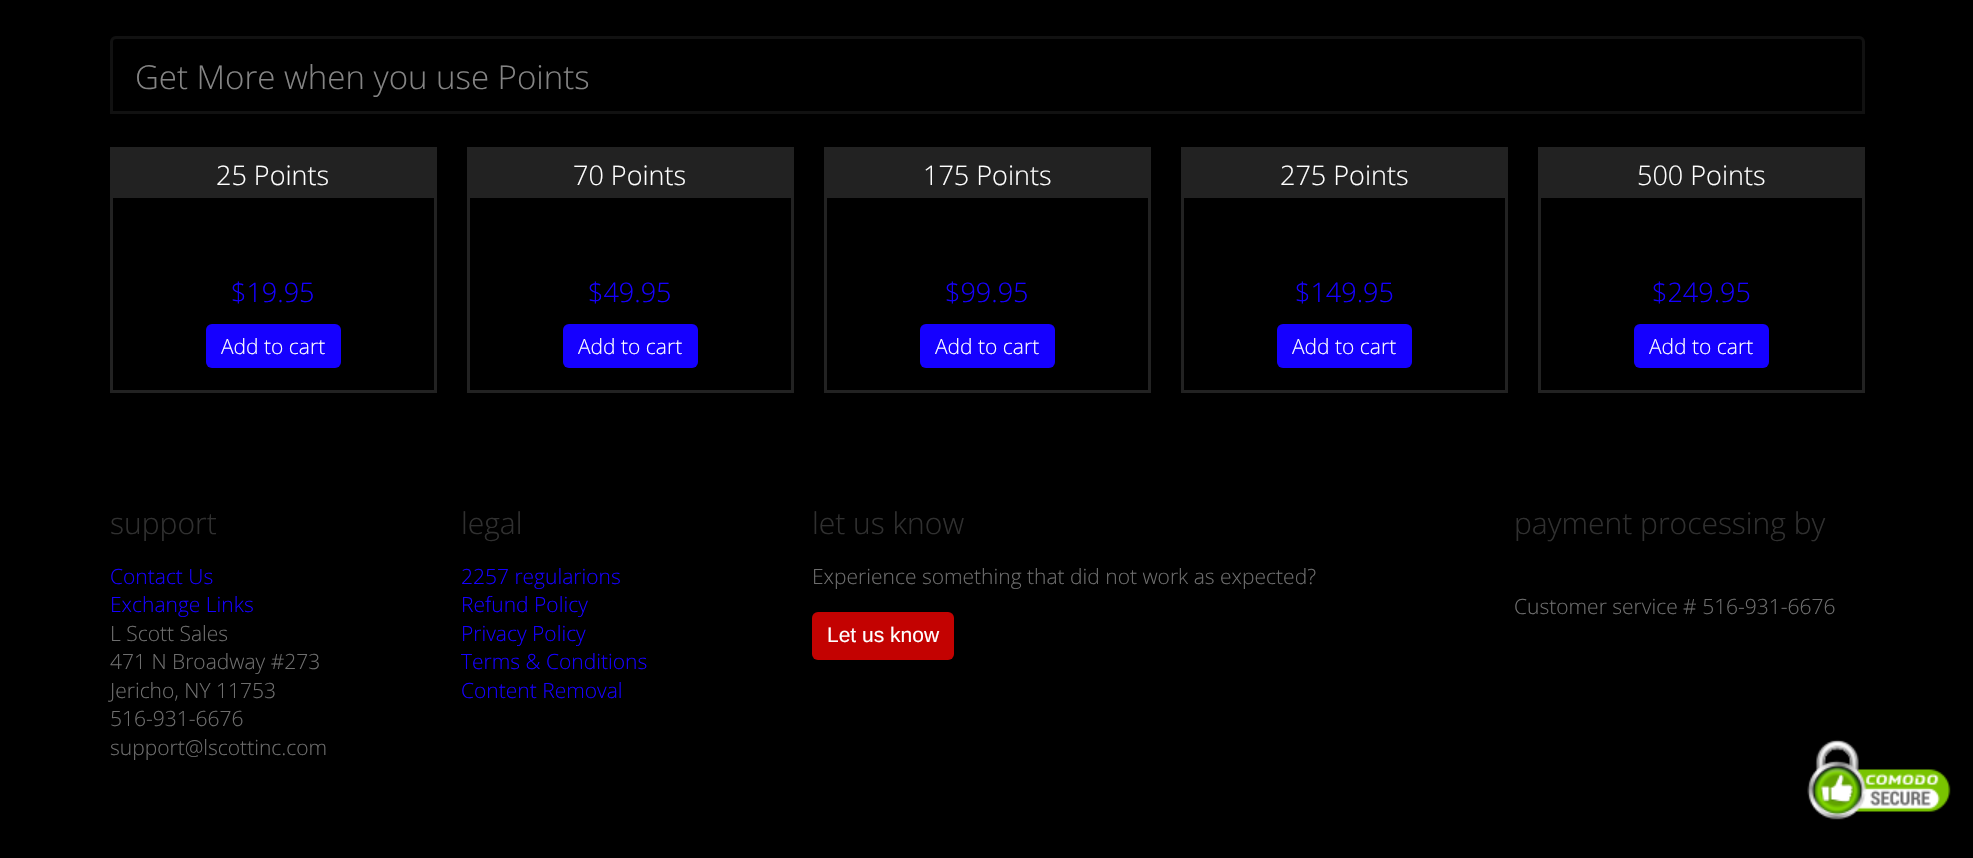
void draw(SkCanvas* canvas) {
    SkPaint paint;
    paint.setAntiAlias(true);
    auto face = [&](const char* family, int weight, float size, bool italic = false) {
        SkFontStyle style(weight, SkFontStyle::kNormal_Width,
            italic ? SkFontStyle::kItalic_Slant : SkFontStyle::kUpright_Slant);
        SkFont result(fontMgr->matchFamilyStyle(family, style), size);
        result.setSubpixel(true);
        return result;
    };
    auto write = [&](const char* s, float x, float y, const SkFont& font, SkColor color) {
        SkPaint ink(SkColor4f::FromColor(color));
        ink.setAntiAlias(true);
        canvas->drawString(s, x, y, font, ink);
    };
    auto block = [&](float x, float y, float w, float h, SkColor color) {
        SkPaint ink(SkColor4f::FromColor(color));
        ink.setAntiAlias(true);
        canvas->drawRect(SkRect::MakeXYWH(x, y, w, h), ink);
    };
    auto card = [&](float x, float y, float w, float h, float radius, SkColor color) {
        SkPaint ink(SkColor4f::FromColor(color));
        ink.setAntiAlias(true);
        canvas->drawRoundRect(SkRect::MakeXYWH(x, y, w, h), radius, radius, ink);
    };
    auto paste = [&](const char* path, float x, float y, float w, float h) {
        auto image = SkImages::DeferredFromEncodedData(SkData::MakeFromFileName(path));
        canvas->drawImageRect(image, SkRect::MakeXYWH(x, y, w, h), SkSamplingOptions());
    };
    canvas->clear(SK_ColorBLACK);
    paint.setStyle(SkPaint::kStroke_Style);
    paint.setStrokeWidth(3);
    paint.setColor(SkColorSetRGB(17, 17, 17));
    canvas->drawPath(SkPathBuilder().moveTo(116, 37.5f).lineTo(1859, 37.5f).cubicTo(1861.5f, 37.5f, 1863.5f, 39.5f, 1863.5f, 42).lineTo(1863.5f, 112.5f).lineTo(111.5f, 112.5f).lineTo(111.5f, 42).cubicTo(111.5f, 39.5f, 113.5f, 37.5f, 116, 37.5f).close().detach(), paint);
    auto kFont1 = face("Open Sans", 300, 33);
    write("Get More when you use Points", 135, 89, kFont1, SkColorSetRGB(132, 132, 132));
    paint.setColor(SkColorSetRGB(34, 34, 34));
    canvas->drawRect(SkRect::MakeXYWH(111.5f, 148.5f, 324, 243), paint);
    block(113, 150, 321, 48, SkColorSetRGB(34, 34, 34));
    auto kFont2 = face("Open Sans", 300, 27);
    write("25 Points", 216, 185, kFont2, SK_ColorWHITE);
    write("$19.95", 231, 302, kFont2, SkColorSetRGB(21, 0, 255));
    card(206, 324, 135, 44, 6, SkColorSetRGB(21, 0, 255));
    auto kFont3 = face("Open Sans", 300, 21);
    write("Add to cart", 221, 354, kFont3, SK_ColorWHITE);
    canvas->drawRect(SkRect::MakeXYWH(468.5f, 148.5f, 324, 243), paint);
    block(470, 150, 321, 48, SkColorSetRGB(34, 34, 34));
    write("70 Points", 573, 185, kFont2, SK_ColorWHITE);
    write("$49.95", 588, 302, kFont2, SkColorSetRGB(21, 0, 255));
    card(563, 324, 135, 44, 6, SkColorSetRGB(21, 0, 255));
    write("Add to cart", 578, 354, kFont3, SK_ColorWHITE);
    canvas->drawRect(SkRect::MakeXYWH(825.5f, 148.5f, 324, 243), paint);
    block(827, 150, 321, 48, SkColorSetRGB(34, 34, 34));
    write("175 Points", 923, 185, kFont2, SK_ColorWHITE);
    write("$99.95", 945, 302, kFont2, SkColorSetRGB(21, 0, 255));
    card(920, 324, 135, 44, 6, SkColorSetRGB(21, 0, 255));
    write("Add to cart", 935, 354, kFont3, SK_ColorWHITE);
    canvas->drawRect(SkRect::MakeXYWH(1182.5f, 148.5f, 324, 243), paint);
    block(1184, 150, 321, 48, SkColorSetRGB(34, 34, 34));
    write("275 Points", 1280, 185, kFont2, SK_ColorWHITE);
    write("$149.95", 1295, 302, kFont2, SkColorSetRGB(21, 0, 255));
    card(1277, 324, 135, 44, 6, SkColorSetRGB(21, 0, 255));
    write("Add to cart", 1292, 354, kFont3, SK_ColorWHITE);
    canvas->drawRect(SkRect::MakeXYWH(1539.5f, 148.5f, 324, 243), paint);
    block(1541, 150, 321, 48, SkColorSetRGB(34, 34, 34));
    write("500 Points", 1637, 185, kFont2, SK_ColorWHITE);
    write("$249.95", 1652, 302, kFont2, SkColorSetRGB(21, 0, 255));
    card(1634, 324, 135, 44, 6, SkColorSetRGB(21, 0, 255));
    write("Add to cart", 1649, 354, kFont3, SK_ColorWHITE);
    auto kFont4 = face("Open Sans", 300, 30);
    write("support", 110, 534, kFont4, SkColorSetRGB(48, 48, 48));
    write("Contact Us", 110, 584, kFont3, SkColorSetRGB(21, 0, 255));
    write("Exchange Links", 110, 612, kFont3, SkColorSetRGB(21, 0, 255));
    write("L Scott Sales", 110, 641, kFont3, SkColorSetRGB(110, 110, 110));
    write("471 N Broadway #273", 110, 669, kFont3, SkColorSetRGB(110, 110, 110));
    write("Jericho, NY 11753", 110, 698, kFont3, SkColorSetRGB(110, 110, 110));
    write("516-931-6676", 110, 726, kFont3, SkColorSetRGB(110, 110, 110));
    write("support@lscottinc.com", 110, 755, kFont3, SkColorSetRGB(110, 110, 110));
    write("legal", 461, 534, kFont4, SkColorSetRGB(48, 48, 48));
    write("2257 regularions", 461, 584, kFont3, SkColorSetRGB(21, 0, 255));
    write("Refund Policy", 461, 612, kFont3, SkColorSetRGB(21, 0, 255));
    write("Privacy Policy", 461, 641, kFont3, SkColorSetRGB(21, 0, 255));
    write("Terms & Conditions", 461, 669, kFont3, SkColorSetRGB(21, 0, 255));
    write("Content Removal", 461, 698, kFont3, SkColorSetRGB(21, 0, 255));
    write("let us know", 812, 534, kFont4, SkColorSetRGB(48, 48, 48));
    write("Experience something that did not work as expected?", 812, 584, kFont3, SkColorSetRGB(110, 110, 110));
    card(812, 612, 142, 48, 6, SkColorSetRGB(195, 2, 1));
    auto kFont5 = face("Liberation Sans", 400, 21);
    write("Let us know", 827, 642, kFont5, SK_ColorWHITE);
    write("payment processing by", 1514, 534, kFont4, SkColorSetRGB(48, 48, 48));
    write("Customer service # 516-931-6676", 1514, 614, kFont3, SkColorSetRGB(110, 110, 110));
    paste("pic1.png", 1807, 739, 144, 81);
}
